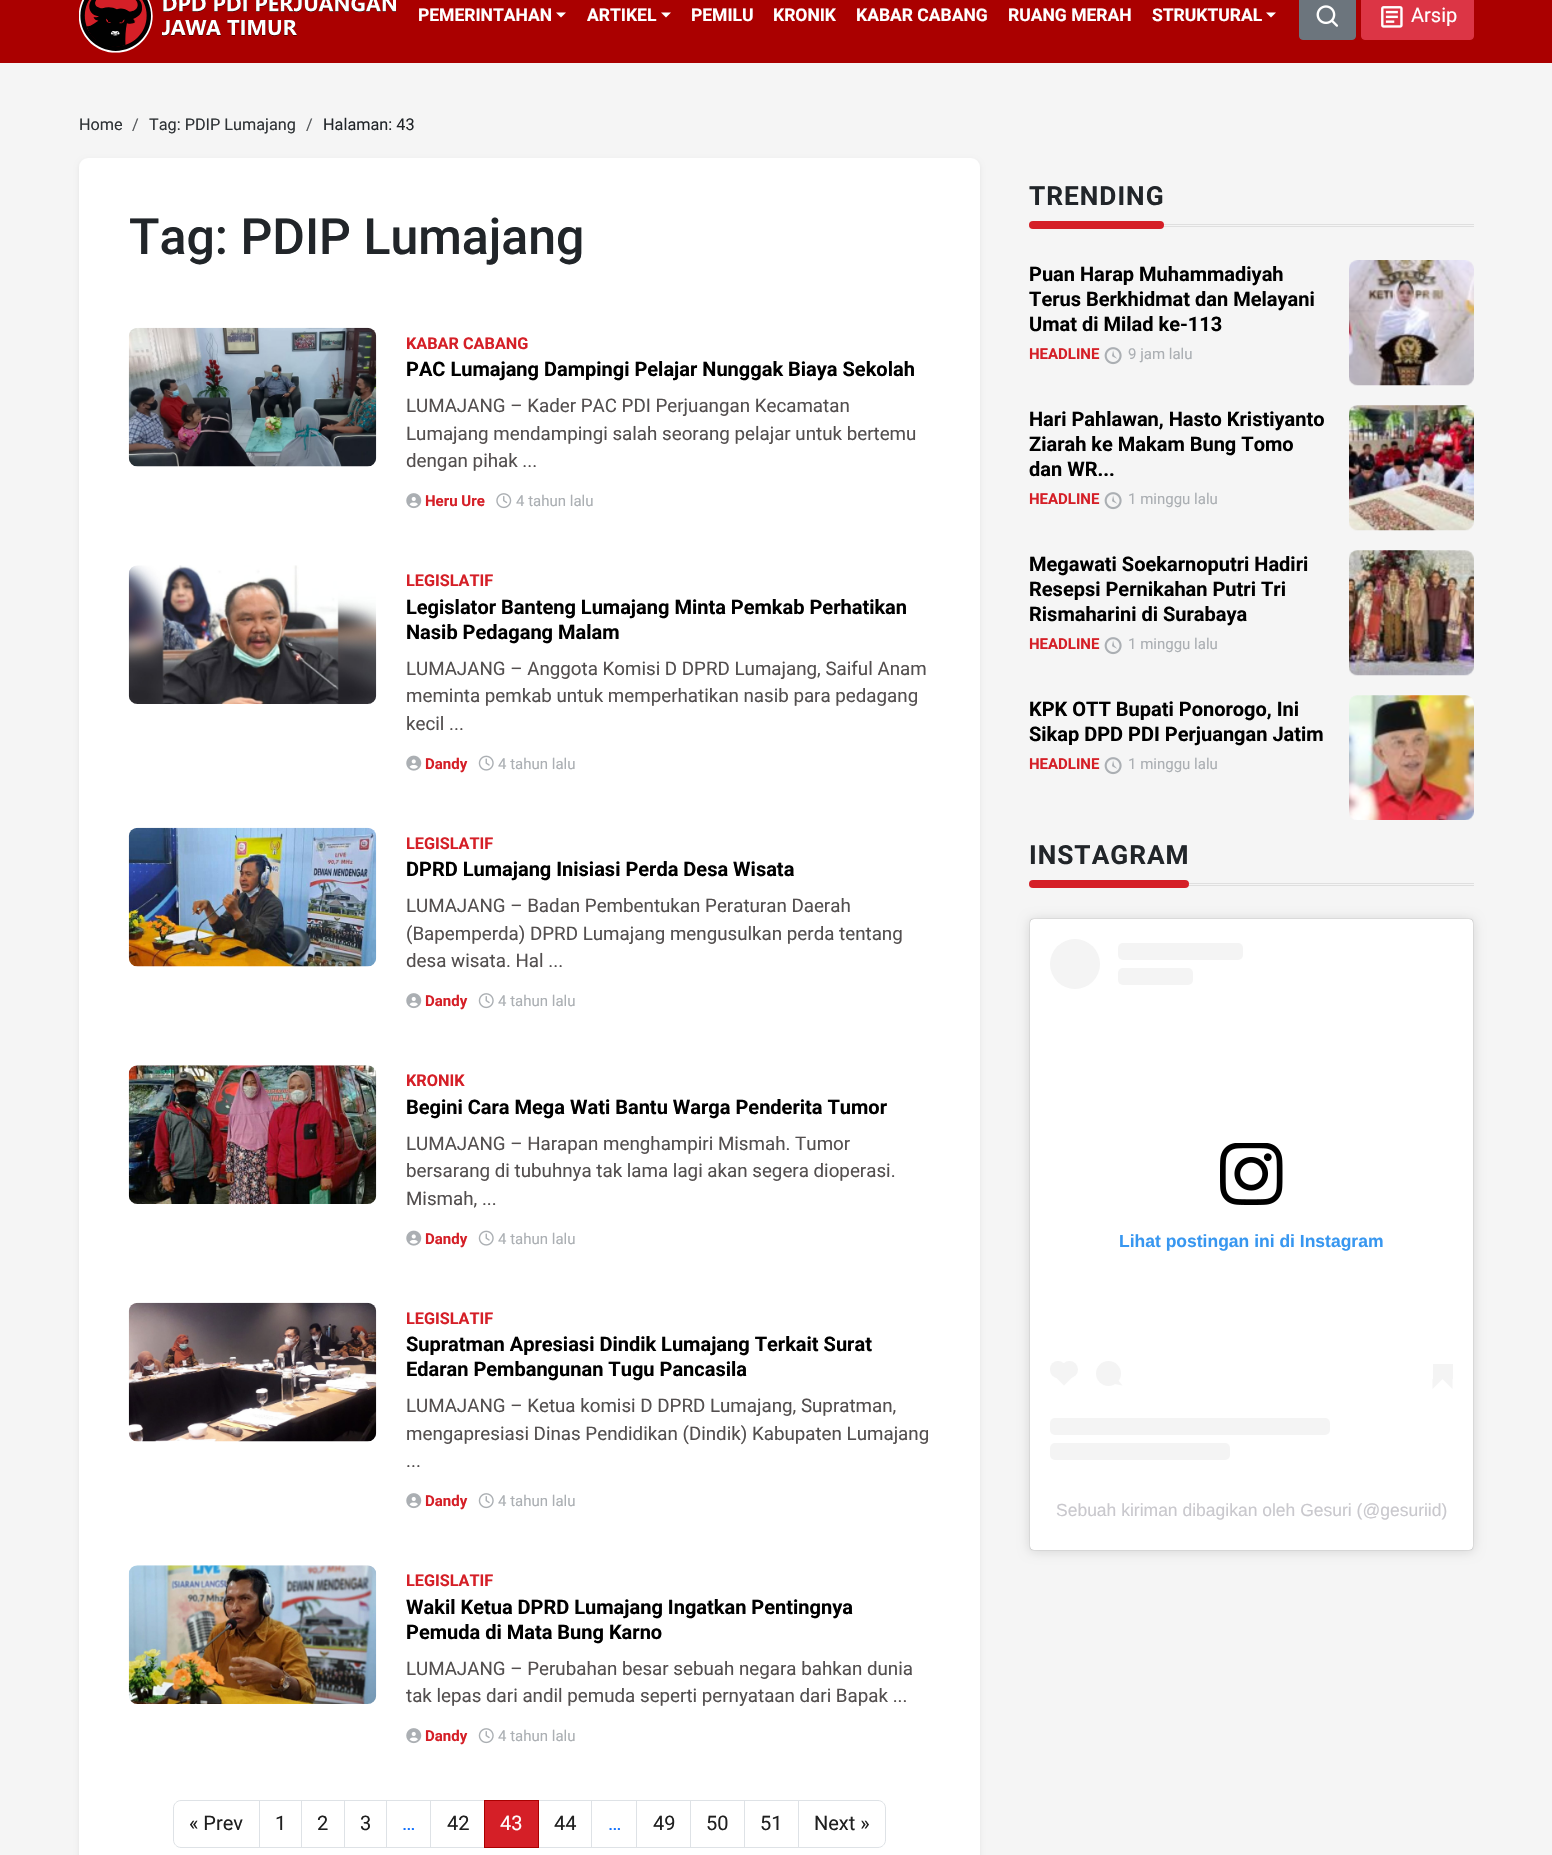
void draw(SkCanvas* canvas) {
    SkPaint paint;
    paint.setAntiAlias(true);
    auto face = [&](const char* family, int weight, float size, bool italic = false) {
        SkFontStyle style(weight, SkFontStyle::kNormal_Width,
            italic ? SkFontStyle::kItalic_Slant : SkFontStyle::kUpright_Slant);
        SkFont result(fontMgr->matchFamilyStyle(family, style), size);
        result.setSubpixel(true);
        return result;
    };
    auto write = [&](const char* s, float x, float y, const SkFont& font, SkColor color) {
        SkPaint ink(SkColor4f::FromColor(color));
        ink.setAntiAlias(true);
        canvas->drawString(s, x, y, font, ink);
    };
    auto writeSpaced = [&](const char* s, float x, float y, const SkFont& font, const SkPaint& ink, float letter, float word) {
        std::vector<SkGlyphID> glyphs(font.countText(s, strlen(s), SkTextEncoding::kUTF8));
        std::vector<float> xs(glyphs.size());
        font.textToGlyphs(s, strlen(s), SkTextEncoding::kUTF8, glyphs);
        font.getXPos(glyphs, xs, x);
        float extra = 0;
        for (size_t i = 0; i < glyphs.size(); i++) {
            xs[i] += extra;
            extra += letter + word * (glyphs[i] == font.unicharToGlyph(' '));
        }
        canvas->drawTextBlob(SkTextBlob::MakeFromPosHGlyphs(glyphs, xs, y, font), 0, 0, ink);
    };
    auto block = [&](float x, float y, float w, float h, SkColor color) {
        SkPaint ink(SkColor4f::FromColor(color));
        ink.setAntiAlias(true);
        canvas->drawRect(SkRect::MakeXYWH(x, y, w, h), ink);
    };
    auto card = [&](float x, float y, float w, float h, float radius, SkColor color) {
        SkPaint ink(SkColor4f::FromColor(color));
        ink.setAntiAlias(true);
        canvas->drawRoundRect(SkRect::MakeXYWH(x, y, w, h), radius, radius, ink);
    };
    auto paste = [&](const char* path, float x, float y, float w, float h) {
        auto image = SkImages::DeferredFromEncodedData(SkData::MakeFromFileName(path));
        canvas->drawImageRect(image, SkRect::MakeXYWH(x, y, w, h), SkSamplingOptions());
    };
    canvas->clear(SkColorSetRGB(245, 245, 245));
    block(0, 0, 1552, 63, SkColorSetRGB(170, 0, 0));
    paste("pic1.png", 79, 0, 317, 53);
    auto kFont1 = face("Roboto", 700, 17.5f);
    write("PEMERINTAHAN", 418, 21, kFont1, SK_ColorWHITE);
    paint.setColor(SK_ColorWHITE);
    canvas->drawPath(SkPathBuilder().moveTo(556, 12.5f).lineTo(566, 12.5f).lineTo(561, 17.5f).close().detach(), paint);
    write("ARTIKEL", 587, 21, kFont1, SK_ColorWHITE);
    canvas->drawPath(SkPathBuilder().moveTo(661, 12.5f).lineTo(671, 12.5f).lineTo(666, 17.5f).close().detach(), paint);
    write("PEMILU", 691, 21, kFont1, SK_ColorWHITE);
    write("KRONIK", 773, 21, kFont1, SK_ColorWHITE);
    write("KABAR CABANG", 856, 21, kFont1, SK_ColorWHITE);
    write("RUANG MERAH", 1008, 21, kFont1, SK_ColorWHITE);
    write("STRUKTURAL", 1152, 21, kFont1, SK_ColorWHITE);
    canvas->drawPath(SkPathBuilder().moveTo(1266, 12.5f).lineTo(1276, 12.5f).lineTo(1271, 17.5f).close().detach(), paint);
    paint.setColor(SkColorSetRGB(108, 117, 125));
    canvas->drawRoundRect(SkRect::MakeXYWH(1299.5f, -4.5f, 56, 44), 3.5f, 3.5f, paint);
    paint.setStyle(SkPaint::kStroke_Style);
    paint.setStrokeWidth(1);
    canvas->drawRoundRect(SkRect::MakeXYWH(1299.5f, -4.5f, 56, 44), 3.5f, 3.5f, paint);
    paste("pic2.png", 1316, 5, 22, 22);
    paint.setStyle(SkPaint::kFill_Style);
    paint.setColor(SkColorSetRGB(220, 53, 69));
    canvas->drawRoundRect(SkRect::MakeXYWH(1361.5f, -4.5f, 112, 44), 3.5f, 3.5f, paint);
    paint.setStyle(SkPaint::kStroke_Style);
    canvas->drawRoundRect(SkRect::MakeXYWH(1361.5f, -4.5f, 112, 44), 3.5f, 3.5f, paint);
    paste("pic3.png", 1381, 6, 22, 22);
    auto kFont2 = face("Roboto", 400, 20);
    write("Arsip", 1411, 22, kFont2, SK_ColorWHITE);
    auto kFont3 = face("Roboto", 400, 16.25f);
    write("Home", 79, 130, kFont3, SkColorSetRGB(47, 51, 54));
    write("/", 132, 130, kFont3, SkColorSetRGB(86, 89, 92));
    write("Tag: PDIP Lumajang", 149, 130, kFont3, SkColorSetRGB(47, 51, 54));
    write("/", 306, 130, kFont3, SkColorSetRGB(86, 89, 92));
    write("Halaman: 43", 323, 130, kFont3, SkColorSetRGB(33, 37, 41));
    paint.setStyle(SkPaint::kFill_Style);
    paint.setColor(SkColorSetARGB(18, 0, 0, 0));
    paint.setMaskFilter(SkMaskFilter::MakeBlur(kNormal_SkBlurStyle, 2.5f));
    canvas->drawRoundRect(SkRect::MakeXYWH(79, 160, 901, 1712), 9, 9, paint);
    paint.setMaskFilter(nullptr);
    card(79, 158, 901, 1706, 9, SK_ColorWHITE);
    auto kFont4 = face("Roboto", 500, 50);
    write("Tag: PDIP Lumajang", 129, 254, kFont4, SkColorSetRGB(33, 37, 41));
    paste("pic4.png", 128, 327, 249, 140);
    auto kFont5 = face("Roboto", 700, 16.25f);
    write("KABAR CABANG", 406, 349, kFont5, SkColorSetRGB(213, 31, 39));
    auto kFont6 = face("Roboto", 700, 20);
    write("PAC Lumajang Dampingi Pelajar Nunggak Biaya Sekolah", 406, 376, kFont6, SK_ColorBLACK);
    auto kFont7 = face("Roboto", 400, 18.75f);
    write("LUMAJANG – Kader PAC PDI Perjuangan Kecamatan", 406, 412, kFont7, SkColorSetRGB(83, 79, 79));
    write("Lumajang mendampingi salah seorang pelajar untuk bertemu", 406, 440, kFont7, SkColorSetRGB(83, 79, 79));
    write("dengan pihak ...", 406, 467, kFont7, SkColorSetRGB(83, 79, 79));
    paste("pic5.png", 406, 493, 16, 16);
    auto kFont8 = face("Roboto", 700, 15);
    write("Heru Ure", 425, 506, kFont8, SkColorSetRGB(213, 31, 39));
    paste("pic6.png", 496, 493, 16, 16);
    auto kFont9 = face("Roboto", 400, 15);
    write("4 tahun lalu", 516, 506, kFont9, SkColorSetRGB(171, 175, 179));
    paste("pic7.png", 128, 565, 249, 139);
    write("LEGISLATIF", 406, 586, kFont5, SkColorSetRGB(213, 31, 39));
    write("Legislator Banteng Lumajang Minta Pemkab Perhatikan", 406, 614, kFont6, SK_ColorBLACK);
    write("Nasib Pedagang Malam", 406, 639, kFont6, SK_ColorBLACK);
    write("LUMAJANG – Anggota Komisi D DPRD Lumajang, Saiful Anam", 406, 675, kFont7, SkColorSetRGB(83, 79, 79));
    write("meminta pemkab untuk memperhatikan nasib para pedagang", 406, 702, kFont7, SkColorSetRGB(83, 79, 79));
    write("kecil ...", 406, 730, kFont7, SkColorSetRGB(83, 79, 79));
    paste("pic8.png", 406, 755, 16, 16);
    write("Dandy", 425, 769, kFont8, SkColorSetRGB(213, 31, 39));
    paste("pic9.png", 478, 755, 16, 16);
    write("4 tahun lalu", 498, 769, kFont9, SkColorSetRGB(171, 175, 179));
    paste("pic10.png", 128, 827, 249, 140);
    write("LEGISLATIF", 406, 849, kFont5, SkColorSetRGB(213, 31, 39));
    write("DPRD Lumajang Inisiasi Perda Desa Wisata", 406, 876, kFont6, SK_ColorBLACK);
    write("LUMAJANG – Badan Pembentukan Peraturan Daerah", 406, 912, kFont7, SkColorSetRGB(83, 79, 79));
    write("(Bapemperda) DPRD Lumajang mengusulkan perda tentang", 406, 940, kFont7, SkColorSetRGB(83, 79, 79));
    write("desa wisata. Hal ...", 406, 967, kFont7, SkColorSetRGB(83, 79, 79));
    paste("pic5.png", 406, 993, 16, 16);
    write("Dandy", 425, 1006, kFont8, SkColorSetRGB(213, 31, 39));
    paste("pic11.png", 478, 993, 16, 16);
    write("4 tahun lalu", 498, 1006, kFont9, SkColorSetRGB(171, 175, 179));
    paste("pic12.png", 128, 1065, 249, 139);
    write("KRONIK", 406, 1086, kFont5, SkColorSetRGB(213, 31, 39));
    write("Begini Cara Mega Wati Bantu Warga Penderita Tumor", 406, 1114, kFont6, SK_ColorBLACK);
    write("LUMAJANG – Harapan menghampiri Mismah. Tumor", 406, 1150, kFont7, SkColorSetRGB(83, 79, 79));
    write("bersarang di tubuhnya tak lama lagi akan segera dioperasi.", 406, 1177, kFont7, SkColorSetRGB(83, 79, 79));
    write("Mismah, ...", 406, 1205, kFont7, SkColorSetRGB(83, 79, 79));
    paste("pic8.png", 406, 1230, 16, 16);
    write("Dandy", 425, 1244, kFont8, SkColorSetRGB(213, 31, 39));
    paste("pic9.png", 478, 1230, 16, 16);
    write("4 tahun lalu", 498, 1244, kFont9, SkColorSetRGB(171, 175, 179));
    paste("pic13.png", 128, 1302, 249, 140);
    write("LEGISLATIF", 406, 1324, kFont5, SkColorSetRGB(213, 31, 39));
    write("Supratman Apresiasi Dindik Lumajang Terkait Surat", 406, 1351, kFont6, SK_ColorBLACK);
    write("Edaran Pembangunan Tugu Pancasila", 406, 1376, kFont6, SK_ColorBLACK);
    write("LUMAJANG – Ketua komisi D DPRD Lumajang, Supratman,", 406, 1412, kFont7, SkColorSetRGB(83, 79, 79));
    write("mengapresiasi Dinas Pendidikan (Dindik) Kabupaten Lumajang", 406, 1440, kFont7, SkColorSetRGB(83, 79, 79));
    write("...", 406, 1467, kFont7, SkColorSetRGB(83, 79, 79));
    paste("pic5.png", 406, 1493, 16, 16);
    write("Dandy", 425, 1506, kFont8, SkColorSetRGB(213, 31, 39));
    paste("pic11.png", 478, 1493, 16, 16);
    write("4 tahun lalu", 498, 1506, kFont9, SkColorSetRGB(171, 175, 179));
    paste("pic14.png", 128, 1565, 249, 139);
    write("LEGISLATIF", 406, 1586, kFont5, SkColorSetRGB(213, 31, 39));
    write("Wakil Ketua DPRD Lumajang Ingatkan Pentingnya", 406, 1614, kFont6, SK_ColorBLACK);
    write("Pemuda di Mata Bung Karno", 406, 1639, kFont6, SK_ColorBLACK);
    write("LUMAJANG – Perubahan besar sebuah negara bahkan dunia", 406, 1675, kFont7, SkColorSetRGB(83, 79, 79));
    write("tak lepas dari andil pemuda seperti pernyataan dari Bapak ...", 406, 1702, kFont7, SkColorSetRGB(83, 79, 79));
    paste("pic5.png", 406, 1728, 16, 16);
    write("Dandy", 425, 1741, kFont8, SkColorSetRGB(213, 31, 39));
    paste("pic11.png", 478, 1728, 16, 16);
    write("4 tahun lalu", 498, 1741, kFont9, SkColorSetRGB(171, 175, 179));
    paint.setStyle(SkPaint::kStroke_Style);
    paint.setColor(SkColorSetRGB(222, 226, 230));
    canvas->drawPath(SkPathBuilder().moveTo(181, 1800.5f).lineTo(259.5f, 1800.5f).lineTo(259.5f, 1847.5f).lineTo(181, 1847.5f).cubicTo(177, 1847.5f, 173.5f, 1844, 173.5f, 1840).lineTo(173.5f, 1808).cubicTo(173.5f, 1804, 177, 1800.5f, 181, 1800.5f).close().detach(), paint);
    write("« Prev", 189, 1830, kFont2, SkColorSetRGB(32, 32, 32));
    canvas->drawRect(SkRect::MakeXYWH(259.5f, 1800.5f, 43, 47), paint);
    write("1", 275, 1830, kFont2, SkColorSetRGB(32, 32, 32));
    block(302, 1801, 1, 46, SK_ColorWHITE);
    canvas->drawRect(SkRect::MakeXYWH(301.5f, 1800.5f, 43, 47), paint);
    write("2", 317, 1830, kFont2, SkColorSetRGB(32, 32, 32));
    canvas->drawRect(SkRect::MakeXYWH(344.5f, 1800.5f, 43, 47), paint);
    write("3", 360, 1830, kFont2, SkColorSetRGB(32, 32, 32));
    block(387, 1801, 1, 46, SK_ColorWHITE);
    canvas->drawRect(SkRect::MakeXYWH(386.5f, 1800.5f, 44, 47), paint);
    write("…", 402, 1830, kFont2, SkColorSetRGB(13, 110, 253));
    canvas->drawRect(SkRect::MakeXYWH(430.5f, 1800.5f, 54, 47), paint);
    write("42", 447, 1830, kFont2, SkColorSetRGB(32, 32, 32));
    canvas->drawRect(SkRect::MakeXYWH(538.5f, 1800.5f, 54, 47), paint);
    paint.setStyle(SkPaint::kFill_Style);
    paint.setColor(SkColorSetRGB(213, 31, 39));
    canvas->drawRect(SkRect::MakeXYWH(484.5f, 1800.5f, 54, 47), paint);
    paint.setStyle(SkPaint::kStroke_Style);
    paint.setColor(SkColorSetRGB(170, 0, 0));
    canvas->drawRect(SkRect::MakeXYWH(484.5f, 1800.5f, 54, 47), paint);
    write("43", 500, 1830, kFont2, SK_ColorWHITE);
    write("44", 554, 1830, kFont2, SkColorSetRGB(32, 32, 32));
    block(592, 1801, 1, 46, SK_ColorWHITE);
    paint.setColor(SkColorSetRGB(222, 226, 230));
    canvas->drawRect(SkRect::MakeXYWH(591.5f, 1800.5f, 46, 47), paint);
    write("…", 608, 1830, kFont2, SkColorSetRGB(13, 110, 253));
    block(637, 1801, 1, 46, SK_ColorWHITE);
    canvas->drawRect(SkRect::MakeXYWH(636.5f, 1800.5f, 54, 47), paint);
    write("49", 653, 1830, kFont2, SkColorSetRGB(32, 32, 32));
    canvas->drawRect(SkRect::MakeXYWH(690.5f, 1800.5f, 54, 47), paint);
    write("50", 706, 1830, kFont2, SkColorSetRGB(32, 32, 32));
    canvas->drawRect(SkRect::MakeXYWH(744.5f, 1800.5f, 54, 47), paint);
    write("51", 760, 1830, kFont2, SkColorSetRGB(32, 32, 32));
    paint.setStyle(SkPaint::kFill_Style);
    paint.setColor(SK_ColorWHITE);
    canvas->drawPath(SkPathBuilder().moveTo(798.5f, 1800.5f).lineTo(878, 1800.5f).cubicTo(882, 1800.5f, 885.5f, 1804, 885.5f, 1808).lineTo(885.5f, 1840).cubicTo(885.5f, 1844, 882, 1847.5f, 878, 1847.5f).lineTo(798.5f, 1847.5f).close().detach(), paint);
    paint.setStyle(SkPaint::kStroke_Style);
    paint.setColor(SkColorSetRGB(222, 226, 230));
    canvas->drawPath(SkPathBuilder().moveTo(798.5f, 1800.5f).lineTo(878, 1800.5f).cubicTo(882, 1800.5f, 885.5f, 1804, 885.5f, 1808).lineTo(885.5f, 1840).cubicTo(885.5f, 1844, 882, 1847.5f, 878, 1847.5f).lineTo(798.5f, 1847.5f).close().detach(), paint);
    write("Next »", 814, 1830, kFont2, SkColorSetRGB(32, 32, 32));
    auto kFont10 = face("Roboto", 700, 26.25f);
    paint.setStyle(SkPaint::kFill_Style);
    paint.setColor(SkColorSetRGB(33, 37, 41));
    writeSpaced("TRENDING", 1029, 205, kFont10, paint, 1, 0);
    block(1029, 224, 445, 1, SkColorSetRGB(223, 223, 223));
    block(1029, 226, 445, 1, SkColorSetRGB(223, 223, 223));
    card(1029, 221, 135, 8, 4, SkColorSetRGB(213, 31, 39));
    write("Puan Harap Muhammadiyah", 1029, 281, kFont6, SK_ColorBLACK);
    write("Terus Berkhidmat dan Melayani", 1029, 306, kFont6, SK_ColorBLACK);
    write("Umat di Milad ke-113", 1029, 331, kFont6, SK_ColorBLACK);
    write("HEADLINE", 1029, 359, kFont8, SkColorSetRGB(213, 31, 39));
    paste("pic15.png", 1104, 347, 18, 18);
    write("9 jam lalu", 1128, 359, kFont9, SkColorSetRGB(171, 175, 179));
    paste("pic16.png", 1349, 260, 125, 126);
    write("Hari Pahlawan, Hasto Kristiyanto", 1029, 426, kFont6, SK_ColorBLACK);
    write("Ziarah ke Makam Bung Tomo", 1029, 451, kFont6, SK_ColorBLACK);
    write("dan WR...", 1029, 476, kFont6, SK_ColorBLACK);
    write("HEADLINE", 1029, 504, kFont8, SkColorSetRGB(213, 31, 39));
    paste("pic15.png", 1104, 492, 18, 18);
    write("1 minggu lalu", 1128, 504, kFont9, SkColorSetRGB(171, 175, 179));
    paste("pic17.png", 1349, 405, 125, 126);
    write("Megawati Soekarnoputri Hadiri", 1029, 571, kFont6, SK_ColorBLACK);
    write("Resepsi Pernikahan Putri Tri", 1029, 596, kFont6, SK_ColorBLACK);
    write("Rismaharini di Surabaya", 1029, 621, kFont6, SK_ColorBLACK);
    write("HEADLINE", 1029, 649, kFont8, SkColorSetRGB(213, 31, 39));
    paste("pic15.png", 1104, 637, 18, 18);
    write("1 minggu lalu", 1128, 649, kFont9, SkColorSetRGB(171, 175, 179));
    paste("pic18.png", 1349, 550, 125, 126);
    write("KPK OTT Bupati Ponorogo, Ini", 1029, 716, kFont6, SK_ColorBLACK);
    write("Sikap DPD PDI Perjuangan Jatim", 1029, 741, kFont6, SK_ColorBLACK);
    write("HEADLINE", 1029, 769, kFont8, SkColorSetRGB(213, 31, 39));
    paste("pic15.png", 1104, 757, 18, 18);
    write("1 minggu lalu", 1128, 769, kFont9, SkColorSetRGB(171, 175, 179));
    paste("pic19.png", 1349, 695, 125, 125);
    writeSpaced("INSTAGRAM", 1029, 864, kFont10, paint, 1, 0);
    block(1029, 883, 445, 1, SkColorSetRGB(223, 223, 223));
    block(1029, 885, 445, 1, SkColorSetRGB(223, 223, 223));
    card(1029, 880, 160, 8, 4, SkColorSetRGB(213, 31, 39));
    paint.setColor(SkColorSetARGB(38, 0, 0, 0));
    paint.setMaskFilter(SkMaskFilter::MakeBlur(kNormal_SkBlurStyle, 6));
    canvas->drawRoundRect(SkRect::MakeXYWH(1030, 920, 443, 631), 4, 4, paint);
    paint.setMaskFilter(nullptr);
    paint.setColor(SkColorSetARGB(128, 0, 0, 0));
    paint.setMaskFilter(SkMaskFilter::MakeBlur(kNormal_SkBlurStyle, 0.5f));
    canvas->drawRoundRect(SkRect::MakeXYWH(1030, 919, 443, 631), 4, 4, paint);
    paint.setMaskFilter(nullptr);
    card(1030, 919, 443, 631, 4, SK_ColorWHITE);
    paint.setColor(SkColorSetRGB(244, 244, 244));
    canvas->drawCircle(1075, 964, 25, paint);
    card(1118, 943, 125, 17, 5, SkColorSetRGB(244, 244, 244));
    card(1118, 968, 75, 17, 5, SkColorSetRGB(244, 244, 244));
    paste("pic20.png", 1220, 1143, 63, 62);
    auto kFont11 = face("Liberation Sans", 700, 17.5f);
    write("Lihat postingan ini di Instagram", 1119, 1247, kFont11, SkColorSetRGB(56, 151, 240));
    card(1050, 1361, 16, 17, 8, SkColorSetRGB(244, 244, 244));
    canvas->drawPath(SkPathBuilder().moveTo(1053, 1374.5f).lineTo(1064, 1363.5f).lineTo(1075, 1374.5f).lineTo(1064, 1385.5f).close().detach(), paint);
    canvas->drawCircle(1069.5f, 1369.5f, 8.5f, paint);
    canvas->drawCircle(1108.5f, 1373.5f, 12.5f, paint);
    canvas->drawPath(SkPathBuilder().moveTo(1115, 1384).lineTo(1117.5f, 1379.5f).lineTo(1122.5f, 1385.5f).close().detach(), paint);
    block(1433, 1364, 20, 15, SkColorSetRGB(244, 244, 244));
    canvas->drawPath(SkPathBuilder().moveTo(1432.5f, 1379).lineTo(1442.5f, 1379).lineTo(1432.5f, 1389).close().detach(), paint);
    canvas->drawPath(SkPathBuilder().moveTo(1442.5f, 1379).lineTo(1452.5f, 1379).lineTo(1452.5f, 1389).close().detach(), paint);
    card(1050, 1418, 280, 17, 5, SkColorSetRGB(244, 244, 244));
    card(1050, 1443, 180, 17, 5, SkColorSetRGB(244, 244, 244));
    auto kFont12 = face("Liberation Sans", 400, 17.5f);
    write("Sebuah kiriman dibagikan oleh Gesuri (@gesuriid)", 1056, 1516, kFont12, SkColorSetRGB(201, 200, 205));
}
